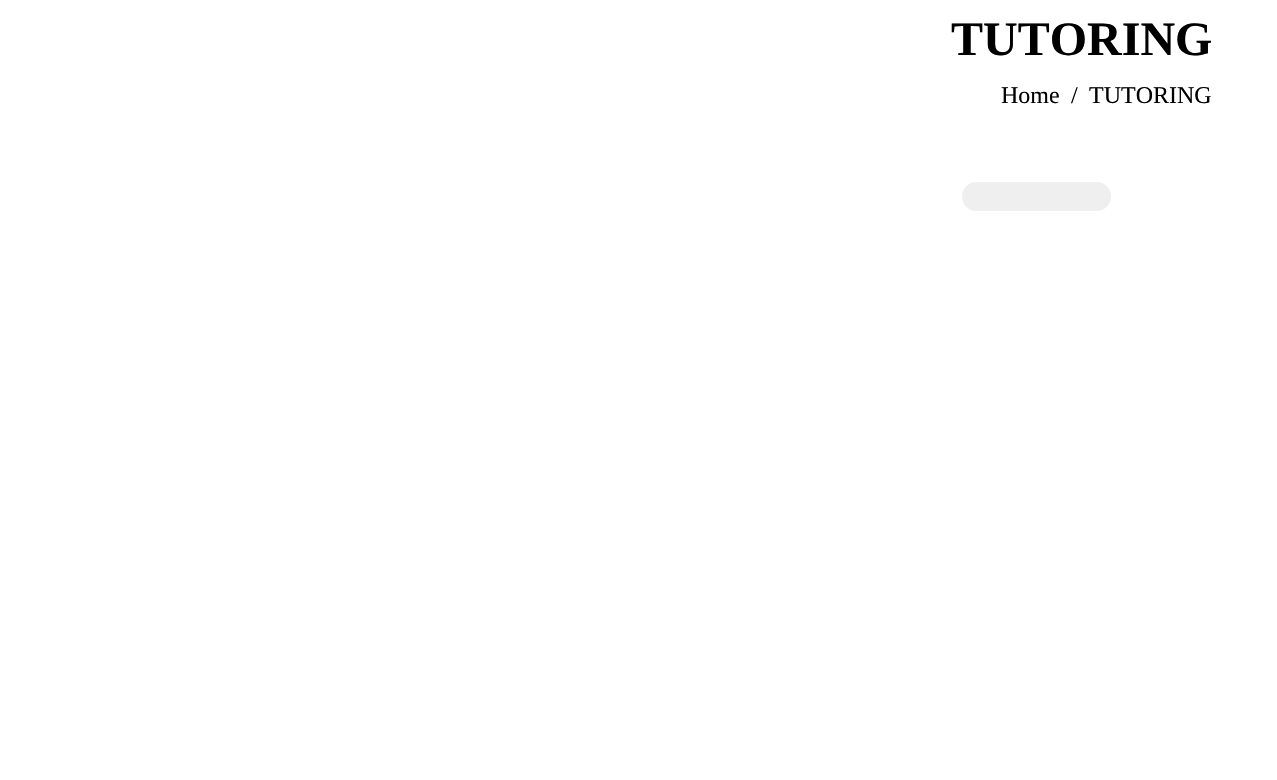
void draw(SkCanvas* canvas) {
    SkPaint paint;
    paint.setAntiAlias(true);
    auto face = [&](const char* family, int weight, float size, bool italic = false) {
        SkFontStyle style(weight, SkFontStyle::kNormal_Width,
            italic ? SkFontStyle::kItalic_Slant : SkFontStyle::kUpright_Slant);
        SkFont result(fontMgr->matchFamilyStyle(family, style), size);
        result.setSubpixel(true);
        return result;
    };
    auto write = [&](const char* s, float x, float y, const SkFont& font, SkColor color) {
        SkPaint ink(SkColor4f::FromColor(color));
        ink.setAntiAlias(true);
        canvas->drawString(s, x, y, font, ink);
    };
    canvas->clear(SK_ColorWHITE);
    auto kFont1 = face("Liberation Serif", 700, 48);
    write("TUTORING", 951, 55, kFont1, SK_ColorBLACK);
    auto kFont2 = face("Liberation Serif", 400, 24);
    write("Home", 1001, 103, kFont2, SK_ColorBLACK);
    write("/", 1071, 103, kFont2, SK_ColorBLACK);
    write("TUTORING", 1089, 103, kFont2, SK_ColorBLACK);
    paint.setColor(SkColorSetRGB(239, 239, 239));
    canvas->drawRoundRect(SkRect::MakeXYWH(961, 181, 151, 31), 15.5f, 15.5f, paint);
    paint.setStyle(SkPaint::kStroke_Style);
    paint.setStrokeWidth(2);
    paint.setColor(SK_ColorWHITE);
    canvas->drawRoundRect(SkRect::MakeXYWH(961, 181, 151, 31), 15.5f, 15.5f, paint);
}
